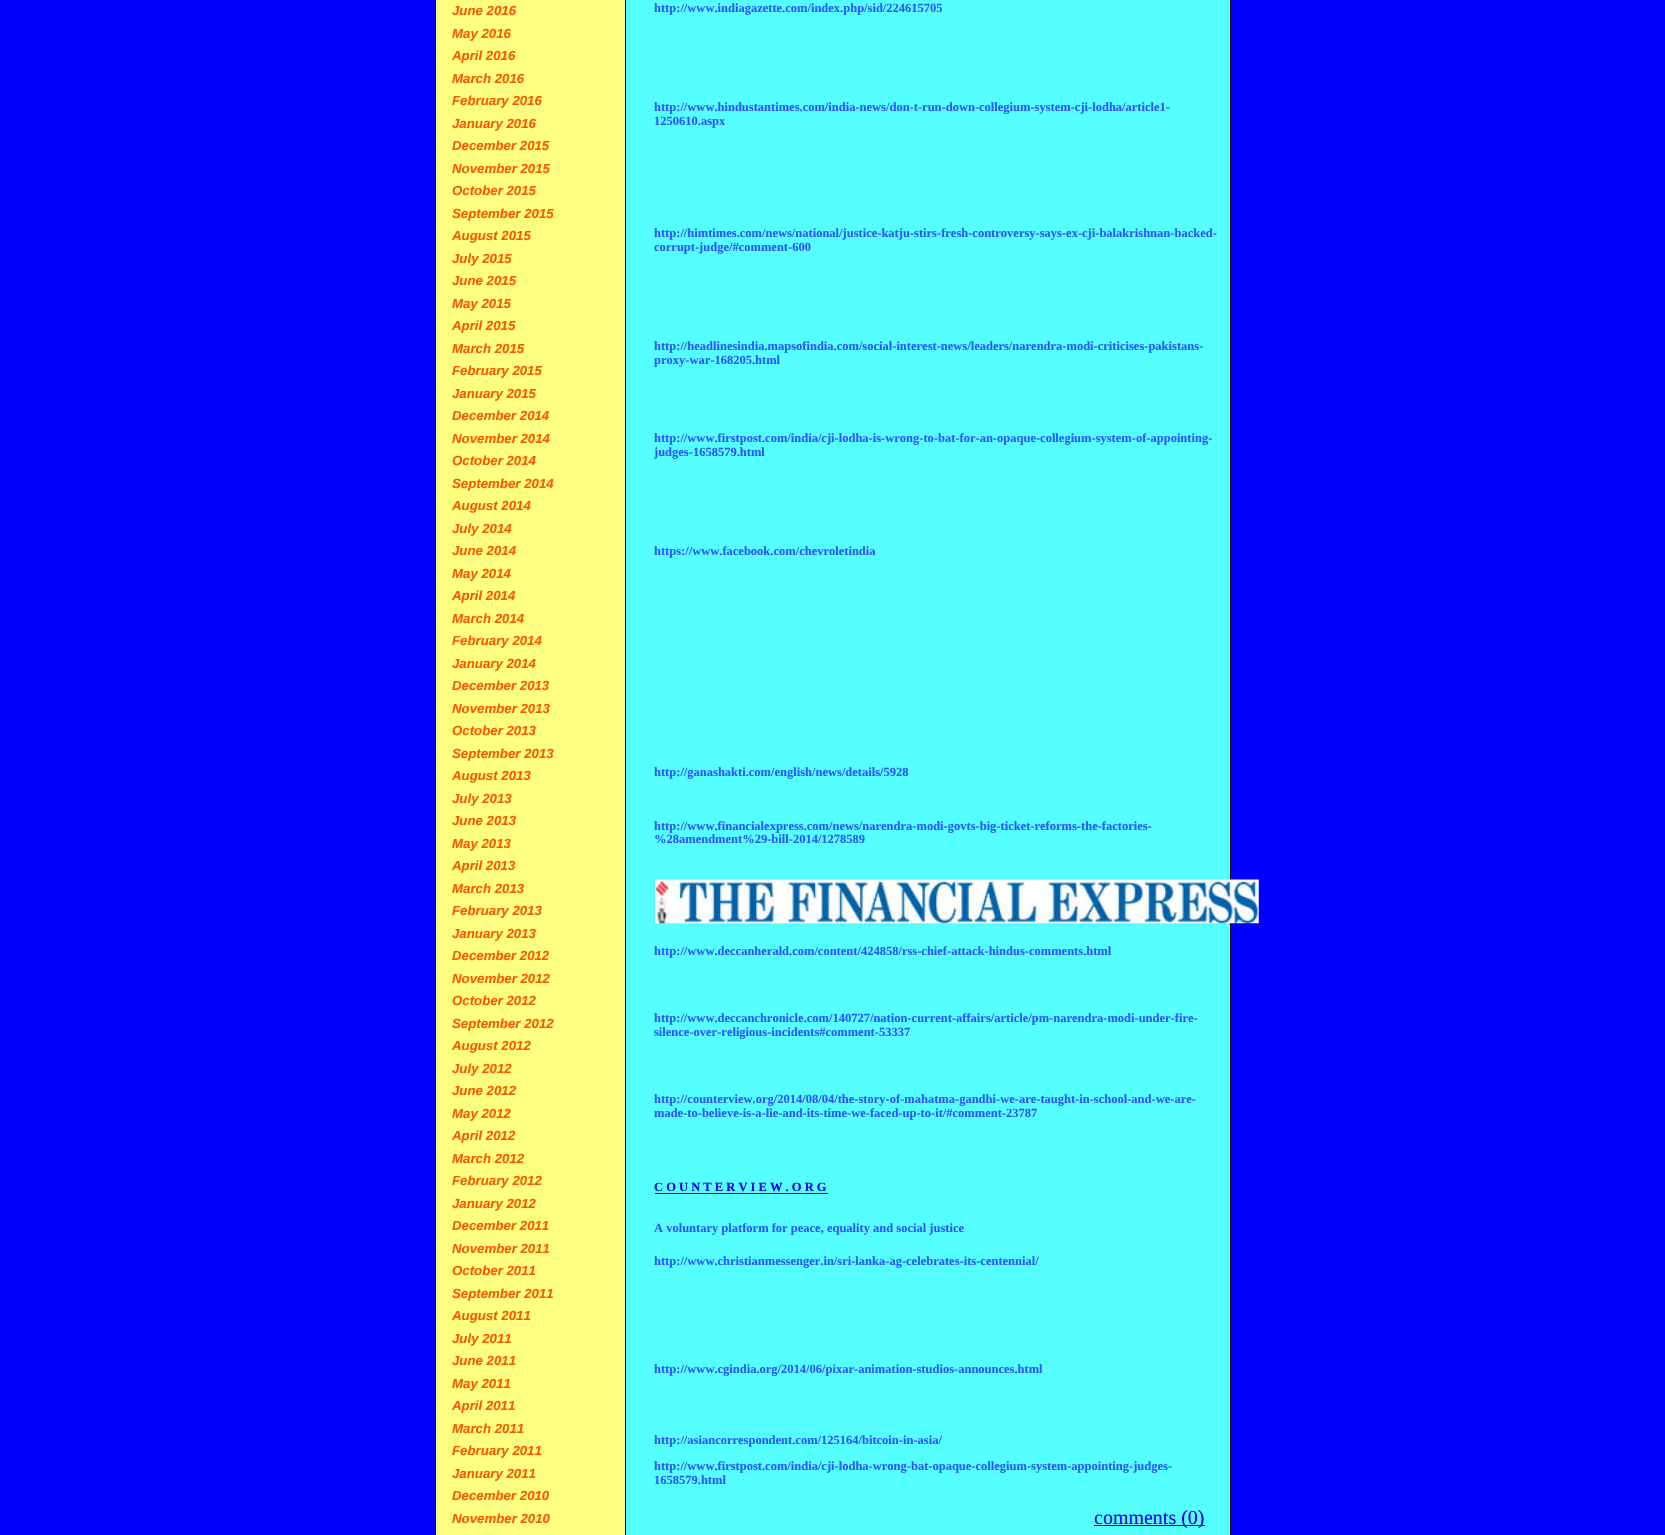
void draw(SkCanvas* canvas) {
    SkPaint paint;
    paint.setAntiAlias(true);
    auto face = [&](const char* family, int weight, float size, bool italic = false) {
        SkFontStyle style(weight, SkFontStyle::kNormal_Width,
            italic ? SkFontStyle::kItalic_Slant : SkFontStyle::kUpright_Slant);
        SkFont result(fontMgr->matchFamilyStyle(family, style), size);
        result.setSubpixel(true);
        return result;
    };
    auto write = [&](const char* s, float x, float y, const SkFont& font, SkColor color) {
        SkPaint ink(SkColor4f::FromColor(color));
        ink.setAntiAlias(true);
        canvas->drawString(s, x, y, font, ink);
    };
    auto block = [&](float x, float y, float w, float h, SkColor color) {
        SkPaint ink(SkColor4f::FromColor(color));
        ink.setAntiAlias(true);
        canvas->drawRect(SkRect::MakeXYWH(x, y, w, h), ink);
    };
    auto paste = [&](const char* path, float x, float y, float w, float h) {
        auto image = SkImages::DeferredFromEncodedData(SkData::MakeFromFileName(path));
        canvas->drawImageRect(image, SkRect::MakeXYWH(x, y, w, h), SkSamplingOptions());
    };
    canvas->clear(SkColorSetRGB(0, 0, 255));
    block(626, 0, 604, 1535, SkColorSetRGB(86, 255, 255));
    paint.setStyle(SkPaint::kStroke_Style);
    paint.setStrokeWidth(1);
    paint.setColor(SK_ColorBLACK);
    canvas->drawRect(SkRect::MakeXYWH(435.5f, -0.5f, 795, 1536), paint);
    block(436, 0, 189, 1535, SkColorSetRGB(255, 255, 129));
    block(625, 0, 1, 1535, SK_ColorBLACK);
    auto kFont1 = face("Liberation Sans", 700, 13.25f, true);
    write("June 2016", 452, 15, kFont1, SkColorSetRGB(255, 86, 0));
    write("May 2016", 452, 38, kFont1, SkColorSetRGB(255, 86, 0));
    write("April 2016", 452, 60, kFont1, SkColorSetRGB(255, 86, 0));
    write("March 2016", 452, 83, kFont1, SkColorSetRGB(255, 86, 0));
    write("February 2016", 452, 105, kFont1, SkColorSetRGB(255, 86, 0));
    write("January 2016", 452, 128, kFont1, SkColorSetRGB(255, 86, 0));
    write("December 2015", 452, 150, kFont1, SkColorSetRGB(255, 86, 0));
    write("November 2015", 452, 173, kFont1, SkColorSetRGB(255, 86, 0));
    write("October 2015", 452, 195, kFont1, SkColorSetRGB(255, 86, 0));
    write("September 2015", 452, 218, kFont1, SkColorSetRGB(255, 86, 0));
    write("August 2015", 452, 240, kFont1, SkColorSetRGB(255, 86, 0));
    write("July 2015", 452, 263, kFont1, SkColorSetRGB(255, 86, 0));
    write("June 2015", 452, 285, kFont1, SkColorSetRGB(255, 86, 0));
    write("May 2015", 452, 308, kFont1, SkColorSetRGB(255, 86, 0));
    write("April 2015", 452, 330, kFont1, SkColorSetRGB(255, 86, 0));
    write("March 2015", 452, 353, kFont1, SkColorSetRGB(255, 86, 0));
    write("February 2015", 452, 375, kFont1, SkColorSetRGB(255, 86, 0));
    write("January 2015", 452, 398, kFont1, SkColorSetRGB(255, 86, 0));
    write("December 2014", 452, 420, kFont1, SkColorSetRGB(255, 86, 0));
    write("November 2014", 452, 443, kFont1, SkColorSetRGB(255, 86, 0));
    write("October 2014", 452, 465, kFont1, SkColorSetRGB(255, 86, 0));
    write("September 2014", 452, 488, kFont1, SkColorSetRGB(255, 86, 0));
    write("August 2014", 452, 510, kFont1, SkColorSetRGB(255, 86, 0));
    write("July 2014", 452, 533, kFont1, SkColorSetRGB(255, 86, 0));
    write("June 2014", 452, 555, kFont1, SkColorSetRGB(255, 86, 0));
    write("May 2014", 452, 578, kFont1, SkColorSetRGB(255, 86, 0));
    write("April 2014", 452, 600, kFont1, SkColorSetRGB(255, 86, 0));
    write("March 2014", 452, 623, kFont1, SkColorSetRGB(255, 86, 0));
    write("February 2014", 452, 645, kFont1, SkColorSetRGB(255, 86, 0));
    write("January 2014", 452, 668, kFont1, SkColorSetRGB(255, 86, 0));
    write("December 2013", 452, 690, kFont1, SkColorSetRGB(255, 86, 0));
    write("November 2013", 452, 713, kFont1, SkColorSetRGB(255, 86, 0));
    write("October 2013", 452, 735, kFont1, SkColorSetRGB(255, 86, 0));
    write("September 2013", 452, 758, kFont1, SkColorSetRGB(255, 86, 0));
    write("August 2013", 452, 780, kFont1, SkColorSetRGB(255, 86, 0));
    write("July 2013", 452, 803, kFont1, SkColorSetRGB(255, 86, 0));
    write("June 2013", 452, 825, kFont1, SkColorSetRGB(255, 86, 0));
    write("May 2013", 452, 848, kFont1, SkColorSetRGB(255, 86, 0));
    write("April 2013", 452, 870, kFont1, SkColorSetRGB(255, 86, 0));
    write("March 2013", 452, 893, kFont1, SkColorSetRGB(255, 86, 0));
    write("February 2013", 452, 915, kFont1, SkColorSetRGB(255, 86, 0));
    write("January 2013", 452, 938, kFont1, SkColorSetRGB(255, 86, 0));
    write("December 2012", 452, 960, kFont1, SkColorSetRGB(255, 86, 0));
    write("November 2012", 452, 983, kFont1, SkColorSetRGB(255, 86, 0));
    write("October 2012", 452, 1005, kFont1, SkColorSetRGB(255, 86, 0));
    write("September 2012", 452, 1028, kFont1, SkColorSetRGB(255, 86, 0));
    write("August 2012", 452, 1050, kFont1, SkColorSetRGB(255, 86, 0));
    write("July 2012", 452, 1073, kFont1, SkColorSetRGB(255, 86, 0));
    write("June 2012", 452, 1095, kFont1, SkColorSetRGB(255, 86, 0));
    write("May 2012", 452, 1118, kFont1, SkColorSetRGB(255, 86, 0));
    write("April 2012", 452, 1140, kFont1, SkColorSetRGB(255, 86, 0));
    write("March 2012", 452, 1163, kFont1, SkColorSetRGB(255, 86, 0));
    write("February 2012", 452, 1185, kFont1, SkColorSetRGB(255, 86, 0));
    write("January 2012", 452, 1208, kFont1, SkColorSetRGB(255, 86, 0));
    write("December 2011", 452, 1230, kFont1, SkColorSetRGB(255, 86, 0));
    write("November 2011", 452, 1253, kFont1, SkColorSetRGB(255, 86, 0));
    write("October 2011", 452, 1275, kFont1, SkColorSetRGB(255, 86, 0));
    write("September 2011", 452, 1298, kFont1, SkColorSetRGB(255, 86, 0));
    write("August 2011", 452, 1320, kFont1, SkColorSetRGB(255, 86, 0));
    write("July 2011", 452, 1343, kFont1, SkColorSetRGB(255, 86, 0));
    write("June 2011", 452, 1365, kFont1, SkColorSetRGB(255, 86, 0));
    write("May 2011", 452, 1388, kFont1, SkColorSetRGB(255, 86, 0));
    write("April 2011", 452, 1410, kFont1, SkColorSetRGB(255, 86, 0));
    write("March 2011", 452, 1433, kFont1, SkColorSetRGB(255, 86, 0));
    write("February 2011", 452, 1455, kFont1, SkColorSetRGB(255, 86, 0));
    write("January 2011", 452, 1478, kFont1, SkColorSetRGB(255, 86, 0));
    write("December 2010", 452, 1500, kFont1, SkColorSetRGB(255, 86, 0));
    write("November 2010", 452, 1523, kFont1, SkColorSetRGB(255, 86, 0));
    auto kFont2 = face("Liberation Serif", 700, 12.5f);
    write("http://www.indiagazette.com/index.php/sid/224615705", 654, 12, kFont2, SkColorSetRGB(43, 86, 255));
    write("http://www.hindustantimes.com/india-news/don-t-run-down-collegium-system-cji-lodha/article1-", 654, 111, kFont2, SkColorSetRGB(43, 86, 255));
    write("1250610.aspx", 654, 125, kFont2, SkColorSetRGB(43, 86, 255));
    write("http://himtimes.com/news/national/justice-katju-stirs-fresh-controversy-says-ex-cji-balakrishnan-backed-", 654, 237, kFont2, SkColorSetRGB(43, 86, 255));
    write("corrupt-judge/#comment-600", 654, 251, kFont2, SkColorSetRGB(43, 86, 255));
    write("http://headlinesindia.mapsofindia.com/social-interest-news/leaders/narendra-modi-criticises-pakistans-", 654, 350, kFont2, SkColorSetRGB(43, 86, 255));
    write("proxy-war-168205.html", 654, 364, kFont2, SkColorSetRGB(43, 86, 255));
    write("http://www.firstpost.com/india/cji-lodha-is-wrong-to-bat-for-an-opaque-collegium-system-of-appointing-", 654, 442, kFont2, SkColorSetRGB(43, 86, 255));
    write("judges-1658579.html", 654, 456, kFont2, SkColorSetRGB(43, 86, 255));
    write("https://www.facebook.com/chevroletindia", 654, 555, kFont2, SkColorSetRGB(43, 86, 255));
    write("http://ganashakti.com/english/news/details/5928", 654, 776, kFont2, SkColorSetRGB(43, 86, 255));
    write("http://www.financialexpress.com/news/narendra-modi-govts-big-ticket-reforms-the-factories-", 654, 830, kFont2, SkColorSetRGB(43, 86, 255));
    write("%28amendment%29-bill-2014/1278589", 654, 843, kFont2, SkColorSetRGB(43, 86, 255));
    paste("pic1.png", 655, 879, 604, 45);
    write("http://www.deccanherald.com/content/424858/rss-chief-attack-hindus-comments.html", 654, 955, kFont2, SkColorSetRGB(43, 86, 255));
    write("http://www.deccanchronicle.com/140727/nation-current-affairs/article/pm-narendra-modi-under-fire-", 654, 1022, kFont2, SkColorSetRGB(43, 86, 255));
    write("silence-over-religious-incidents#comment-53337", 654, 1036, kFont2, SkColorSetRGB(43, 86, 255));
    write("http://counterview.org/2014/08/04/the-story-of-mahatma-gandhi-we-are-taught-in-school-and-we-are-", 654, 1103, kFont2, SkColorSetRGB(43, 86, 255));
    write("made-to-believe-is-a-lie-and-its-time-we-faced-up-to-it/#comment-23787", 654, 1117, kFont2, SkColorSetRGB(43, 86, 255));
    write("C O U N T E R V I E W . O R G", 654, 1191, kFont2, SkColorSetRGB(0, 0, 238));
    block(655, 1193, 173, 1, SkColorSetRGB(0, 0, 238));
    write("A voluntary platform for peace, equality and social justice", 654, 1232, kFont2, SkColorSetRGB(43, 86, 255));
    write("http://www.christianmessenger.in/sri-lanka-ag-celebrates-its-centennial/", 654, 1265, kFont2, SkColorSetRGB(43, 86, 255));
    write("http://www.cgindia.org/2014/06/pixar-animation-studios-announces.html", 654, 1373, kFont2, SkColorSetRGB(43, 86, 255));
    write("http://asiancorrespondent.com/125164/bitcoin-in-asia/", 654, 1444, kFont2, SkColorSetRGB(43, 86, 255));
    write("http://www.firstpost.com/india/cji-lodha-wrong-bat-opaque-collegium-system-appointing-judges-", 654, 1470, kFont2, SkColorSetRGB(43, 86, 255));
    write("1658579.html", 654, 1484, kFont2, SkColorSetRGB(43, 86, 255));
    block(1094, 1525, 111, 1, SkColorSetRGB(0, 0, 238));
    auto kFont3 = face("Liberation Serif", 400, 20);
    write("comments (0)", 1094, 1524, kFont3, SkColorSetRGB(0, 0, 238));
}
